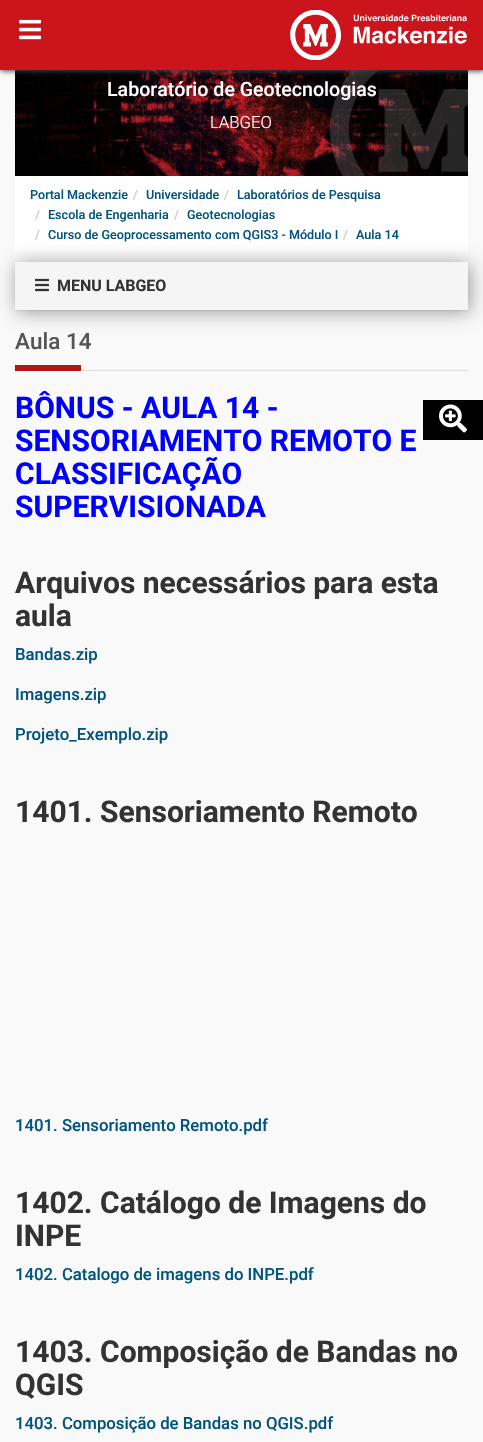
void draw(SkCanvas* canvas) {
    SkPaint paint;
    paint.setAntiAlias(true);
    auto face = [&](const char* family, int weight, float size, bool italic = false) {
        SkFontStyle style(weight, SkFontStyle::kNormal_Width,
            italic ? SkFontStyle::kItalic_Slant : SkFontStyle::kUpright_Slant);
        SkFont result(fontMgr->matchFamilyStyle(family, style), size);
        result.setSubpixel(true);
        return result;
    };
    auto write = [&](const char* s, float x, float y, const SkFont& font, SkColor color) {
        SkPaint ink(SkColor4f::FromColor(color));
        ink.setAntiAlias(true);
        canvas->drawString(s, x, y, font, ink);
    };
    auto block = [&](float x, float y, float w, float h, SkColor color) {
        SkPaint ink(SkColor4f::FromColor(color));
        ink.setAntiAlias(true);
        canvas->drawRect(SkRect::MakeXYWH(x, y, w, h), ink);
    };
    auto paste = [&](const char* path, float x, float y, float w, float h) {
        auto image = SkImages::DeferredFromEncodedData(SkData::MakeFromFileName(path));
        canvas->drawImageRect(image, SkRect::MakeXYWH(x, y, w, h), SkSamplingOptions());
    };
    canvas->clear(SkColorSetRGB(249, 249, 249));
    paste("pic3.png", 15, 70, 453, 106);
    paint.setColor(SkColorSetRGB(68, 68, 68));
    paint.setMaskFilter(SkMaskFilter::MakeBlur(kNormal_SkBlurStyle, 2.5f));
    canvas->drawRect(SkRect::MakeXYWH(1, 1, 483, 70), paint);
    paint.setMaskFilter(nullptr);
    block(0, 0, 483, 70, SkColorSetRGB(204, 20, 29));
    paste("pic1.png", 19, 19, 23, 21);
    paste("pic2.png", 290, 10, 177, 50);
    auto kFont1 = face("Roboto", 500, 19.6f);
    write("Laboratório de Geotecnologias", 107, 96, kFont1, SK_ColorWHITE);
    auto kFont2 = face("Roboto", 300, 16.75f);
    write("LABGEO", 210, 128, kFont2, SK_ColorWHITE);
    block(15, 176, 453, 76, SK_ColorWHITE);
    auto kFont3 = face("Roboto", 500, 12.6f);
    write("Portal Mackenzie", 30, 199, kFont3, SkColorSetRGB(0, 84, 127));
    write("/", 133, 199, kFont3, SkColorSetRGB(204, 204, 204));
    write("Universidade", 146, 199, kFont3, SkColorSetRGB(0, 84, 127));
    write("/", 224, 199, kFont3, SkColorSetRGB(204, 204, 204));
    write("Laboratórios de Pesquisa", 237, 199, kFont3, SkColorSetRGB(0, 84, 127));
    write("/", 35, 219, kFont3, SkColorSetRGB(204, 204, 204));
    write("Escola de Engenharia", 48, 219, kFont3, SkColorSetRGB(0, 84, 127));
    write("/", 174, 219, kFont3, SkColorSetRGB(204, 204, 204));
    write("Geotecnologias", 187, 219, kFont3, SkColorSetRGB(0, 84, 127));
    write("/", 35, 239, kFont3, SkColorSetRGB(204, 204, 204));
    write("Curso de Geoprocessamento com QGIS3 - Módulo I", 48, 239, kFont3, SkColorSetRGB(0, 84, 127));
    write("/", 343, 239, kFont3, SkColorSetRGB(204, 204, 204));
    write("Aula 14", 356, 239, kFont3, SkColorSetRGB(0, 84, 127));
    paint.setColor(SkColorSetRGB(153, 153, 153));
    paint.setMaskFilter(SkMaskFilter::MakeBlur(kNormal_SkBlurStyle, 9.5f));
    canvas->drawRect(SkRect::MakeXYWH(17, 264, 453, 48), paint);
    paint.setMaskFilter(nullptr);
    paint.setColor(SkColorSetARGB(13, 0, 0, 0));
    paint.setMaskFilter(SkMaskFilter::MakeBlur(kNormal_SkBlurStyle, 0.5f));
    canvas->drawRect(SkRect::MakeXYWH(15, 263, 453, 48), paint);
    paint.setMaskFilter(nullptr);
    block(15, 262, 453, 48, SkColorSetRGB(245, 245, 245));
    paste("pic4.png", 35, 278, 14, 14);
    auto kFont4 = face("Roboto", 700, 16);
    write("MENU LABGEO", 57, 291, kFont4, SkColorSetRGB(51, 51, 51));
    block(81, 370, 387, 1, SkColorSetRGB(221, 221, 221));
    auto kFont5 = face("Roboto", 500, 22.5f);
    write("Aula 14", 15, 349, kFont5, SkColorSetRGB(85, 85, 85));
    block(15, 365, 66, 6, SkColorSetRGB(175, 24, 22));
    auto kFont6 = face("Roboto", 700, 30);
    write("BÔNUS - AULA 14 -", 15, 418, kFont6, SkColorSetRGB(0, 0, 255));
    write("SENSORIAMENTO REMOTO E", 15, 451, kFont6, SkColorSetRGB(0, 0, 255));
    write("CLASSIFICAÇÃO", 15, 484, kFont6, SkColorSetRGB(0, 0, 255));
    write("SUPERVISIONADA", 15, 517, kFont6, SkColorSetRGB(0, 0, 255));
    write("Arquivos necessários para esta", 15, 593, kFont6, SkColorSetRGB(51, 51, 51));
    write("aula", 15, 626, kFont6, SkColorSetRGB(51, 51, 51));
    auto kFont7 = face("Roboto", 500, 16.75f);
    write("Bandas.zip", 15, 660, kFont7, SkColorSetRGB(0, 84, 127));
    write("Imagens.zip", 15, 700, kFont7, SkColorSetRGB(0, 84, 127));
    write("Projeto_Exemplo.zip", 15, 740, kFont7, SkColorSetRGB(0, 84, 127));
    write("1401. Sensoriamento Remoto", 15, 822, kFont6, SkColorSetRGB(51, 51, 51));
    write("1401. Sensoriamento Remoto.pdf", 15, 1131, kFont7, SkColorSetRGB(0, 84, 127));
    write("1402. Catálogo de Imagens do", 15, 1213, kFont6, SkColorSetRGB(51, 51, 51));
    write("INPE", 15, 1246, kFont6, SkColorSetRGB(51, 51, 51));
    write("1402. Catalogo de imagens do INPE.pdf", 15, 1280, kFont7, SkColorSetRGB(0, 84, 127));
    write("1403. Composição de Bandas no", 15, 1362, kFont6, SkColorSetRGB(51, 51, 51));
    write("QGIS", 15, 1395, kFont6, SkColorSetRGB(51, 51, 51));
    write("1403. Composição de Bandas no QGIS.pdf", 15, 1429, kFont7, SkColorSetRGB(0, 84, 127));
    block(423, 400, 60, 40, SK_ColorBLACK);
    paste("pic5.png", 439, 404, 28, 29);
}
